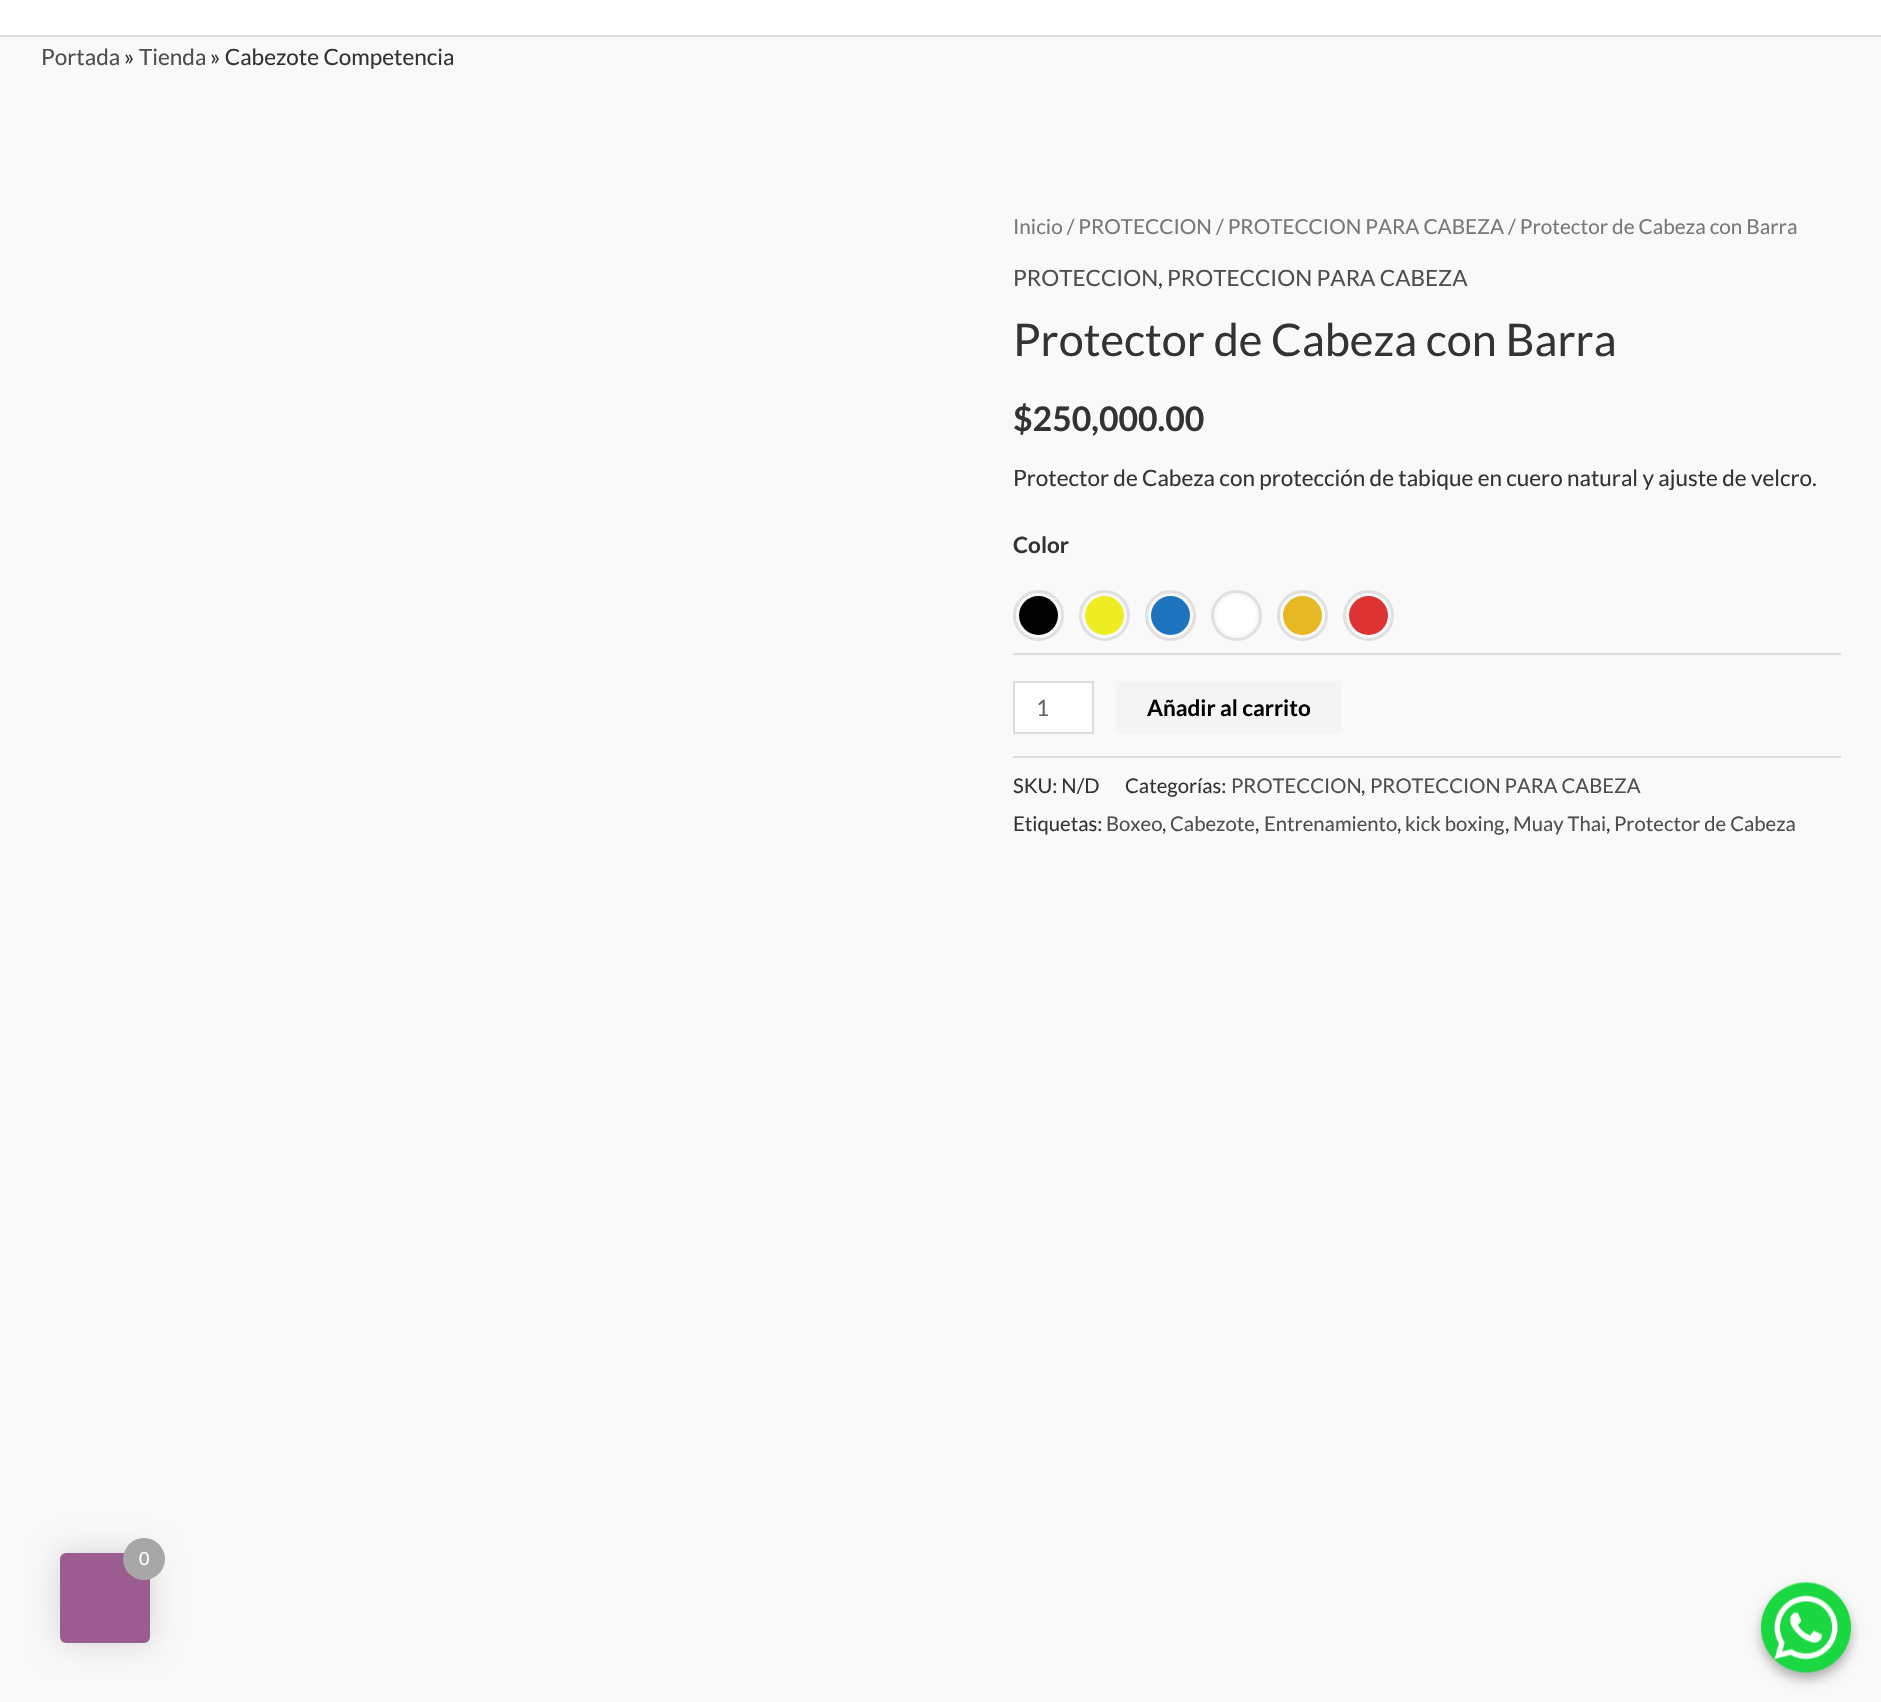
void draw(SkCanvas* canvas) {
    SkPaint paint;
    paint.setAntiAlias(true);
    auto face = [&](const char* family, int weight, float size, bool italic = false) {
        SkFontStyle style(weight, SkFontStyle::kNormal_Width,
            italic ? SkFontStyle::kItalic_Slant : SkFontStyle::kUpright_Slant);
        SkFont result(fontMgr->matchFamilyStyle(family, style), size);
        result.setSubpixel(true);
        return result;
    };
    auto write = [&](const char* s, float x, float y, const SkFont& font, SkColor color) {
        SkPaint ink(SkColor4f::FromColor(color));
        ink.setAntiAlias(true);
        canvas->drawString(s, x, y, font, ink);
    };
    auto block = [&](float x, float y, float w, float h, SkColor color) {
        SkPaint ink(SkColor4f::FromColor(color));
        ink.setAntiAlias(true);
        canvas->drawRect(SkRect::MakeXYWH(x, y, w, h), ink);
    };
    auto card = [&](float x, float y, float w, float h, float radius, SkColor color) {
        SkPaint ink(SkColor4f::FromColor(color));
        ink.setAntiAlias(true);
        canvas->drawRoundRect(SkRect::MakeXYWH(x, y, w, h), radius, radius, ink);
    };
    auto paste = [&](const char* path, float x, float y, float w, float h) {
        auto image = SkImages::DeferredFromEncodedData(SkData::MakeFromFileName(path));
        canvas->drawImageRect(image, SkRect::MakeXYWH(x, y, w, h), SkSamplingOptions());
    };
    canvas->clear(SkColorSetRGB(249, 249, 249));
    block(0, 0, 1881, 35, SK_ColorWHITE);
    block(0, 35, 1881, 2, SkColorSetRGB(221, 221, 221));
    auto kFont1 = face("Lato", 400, 22.5f);
    write("Portada", 41, 65, kFont1, SkColorSetRGB(78, 78, 78));
    write("»", 124, 65, kFont1, SkColorSetRGB(51, 51, 51));
    write("Tienda", 139, 65, kFont1, SkColorSetRGB(78, 78, 78));
    write("» Cabezote Competencia", 210, 65, kFont1, SkColorSetRGB(51, 51, 51));
    auto kFont2 = face("Lato", 400, 20.7f);
    write("Inicio / PROTECCION / PROTECCION PARA CABEZA / Protector de Cabeza con Barra", 1013, 234, kFont2, SkColorSetRGB(119, 119, 119));
    write("PROTECCION", 1013, 286, kFont1, SkColorSetRGB(78, 78, 78));
    write(",", 1158, 286, kFont1, SkColorSetRGB(51, 51, 51));
    write("PROTECCION PARA CABEZA", 1167, 286, kFont1, SkColorSetRGB(78, 78, 78));
    auto kFont3 = face("Lato", 400, 45);
    write("Protector de Cabeza con Barra", 1013, 356, kFont3, SkColorSetRGB(51, 51, 51));
    auto kFont4 = face("Lato", 700, 33.75f);
    write("$250,000.00", 1013, 431, kFont4, SkColorSetRGB(51, 51, 51));
    write("Protector de Cabeza con protección de tabique en cuero natural y ajuste de velcro.", 1013, 486, kFont1, SkColorSetRGB(51, 51, 51));
    block(1013, 653, 828, 2, SkColorSetRGB(221, 221, 221));
    auto kFont5 = face("Lato", 700, 22.5f);
    write("Color", 1013, 553, kFont5, SkColorSetRGB(51, 51, 51));
    paint.setStyle(SkPaint::kStroke_Style);
    paint.setStrokeWidth(3);
    paint.setColor(SkColorSetRGB(224, 224, 224));
    canvas->drawCircle(1038.5f, 615.5f, 24, paint);
    paint.setStyle(SkPaint::kFill_Style);
    paint.setColor(SK_ColorBLACK);
    canvas->drawCircle(1038.5f, 615.5f, 19.5f, paint);
    paint.setStyle(SkPaint::kStroke_Style);
    paint.setColor(SkColorSetRGB(224, 224, 224));
    canvas->drawCircle(1104.5f, 615.5f, 24, paint);
    paint.setStyle(SkPaint::kFill_Style);
    paint.setColor(SkColorSetRGB(238, 238, 34));
    canvas->drawCircle(1104.5f, 615.5f, 19.5f, paint);
    paint.setStyle(SkPaint::kStroke_Style);
    paint.setColor(SkColorSetRGB(224, 224, 224));
    canvas->drawCircle(1170.5f, 615.5f, 24, paint);
    paint.setStyle(SkPaint::kFill_Style);
    paint.setColor(SkColorSetRGB(30, 115, 190));
    canvas->drawCircle(1170.5f, 615.5f, 19.5f, paint);
    paint.setStyle(SkPaint::kStroke_Style);
    paint.setColor(SkColorSetRGB(224, 224, 224));
    canvas->drawCircle(1236.5f, 615.5f, 24, paint);
    paint.setStyle(SkPaint::kFill_Style);
    paint.setColor(SK_ColorWHITE);
    canvas->drawCircle(1236.5f, 615.5f, 19.5f, paint);
    paint.setStyle(SkPaint::kStroke_Style);
    paint.setColor(SkColorSetRGB(224, 224, 224));
    canvas->drawCircle(1302.5f, 615.5f, 24, paint);
    paint.setStyle(SkPaint::kFill_Style);
    paint.setColor(SkColorSetRGB(229, 184, 36));
    canvas->drawCircle(1302.5f, 615.5f, 19.5f, paint);
    paint.setStyle(SkPaint::kStroke_Style);
    paint.setColor(SkColorSetRGB(224, 224, 224));
    canvas->drawCircle(1368.5f, 615.5f, 24, paint);
    paint.setStyle(SkPaint::kFill_Style);
    paint.setColor(SkColorSetRGB(221, 51, 51));
    canvas->drawCircle(1368.5f, 615.5f, 19.5f, paint);
    paint.setColor(SK_ColorWHITE);
    canvas->drawRect(SkRect::MakeXYWH(1014, 682, 79, 51), paint);
    paint.setStyle(SkPaint::kStroke_Style);
    paint.setStrokeWidth(2);
    paint.setColor(SkColorSetRGB(221, 221, 221));
    canvas->drawRect(SkRect::MakeXYWH(1014, 682, 79, 51), paint);
    write("1", 1036, 716, kFont1, SkColorSetRGB(102, 102, 102));
    block(1116, 681, 225, 53, SkColorSetRGB(244, 244, 244));
    write("Añadir al carrito", 1147, 716, kFont5, SK_ColorBLACK);
    block(1013, 756, 828, 2, SkColorSetRGB(221, 221, 221));
    auto kFont6 = face("Lato", 400, 20.25f);
    write("SKU: N/D", 1013, 793, kFont6, SkColorSetRGB(51, 51, 51));
    write("Categorías:", 1125, 793, kFont6, SkColorSetRGB(51, 51, 51));
    write("PROTECCION", 1231, 793, kFont6, SkColorSetRGB(78, 78, 78));
    write(",", 1361, 793, kFont6, SkColorSetRGB(51, 51, 51));
    write("PROTECCION PARA CABEZA", 1370, 793, kFont6, SkColorSetRGB(78, 78, 78));
    write("Etiquetas:", 1013, 831, kFont6, SkColorSetRGB(51, 51, 51));
    write("Boxeo", 1106, 831, kFont6, SkColorSetRGB(78, 78, 78));
    write(",", 1162, 831, kFont6, SkColorSetRGB(51, 51, 51));
    write("Cabezote", 1170, 831, kFont6, SkColorSetRGB(78, 78, 78));
    write(",", 1255, 831, kFont6, SkColorSetRGB(51, 51, 51));
    write("Entrenamiento", 1264, 831, kFont6, SkColorSetRGB(78, 78, 78));
    write(",", 1397, 831, kFont6, SkColorSetRGB(51, 51, 51));
    write("kick boxing", 1405, 831, kFont6, SkColorSetRGB(78, 78, 78));
    write(",", 1505, 831, kFont6, SkColorSetRGB(51, 51, 51));
    write("Muay Thai", 1513, 831, kFont6, SkColorSetRGB(78, 78, 78));
    write(",", 1606, 831, kFont6, SkColorSetRGB(51, 51, 51));
    write("Protector de Cabeza", 1614, 831, kFont6, SkColorSetRGB(78, 78, 78));
    paint.setStyle(SkPaint::kFill_Style);
    paint.setColor(SkColorSetARGB(38, 0, 0, 0));
    paint.setMaskFilter(SkMaskFilter::MakeBlur(kNormal_SkBlurStyle, 15));
    canvas->drawRoundRect(SkRect::MakeXYWH(60, 1553, 90, 90), 6, 6, paint);
    paint.setMaskFilter(nullptr);
    card(60, 1553, 90, 90, 6, SkColorSetRGB(155, 92, 143));
    paint.setColor(SkColorSetRGB(167, 167, 167));
    canvas->drawCircle(144, 1559, 21, paint);
    auto kFont7 = face("Lato", 400, 18);
    write("0", 139, 1565, kFont7, SK_ColorWHITE);
    paint.setColor(SkColorSetARGB(77, 0, 0, 0));
    paint.setMaskFilter(SkMaskFilter::MakeBlur(kNormal_SkBlurStyle, 6));
    canvas->drawRoundRect(SkRect::MakeXYWH(1761, 1589, 90, 90), 45, 45, paint);
    paint.setMaskFilter(nullptr);
    paste("pic1.png", 1761, 1582, 90, 91);
}
